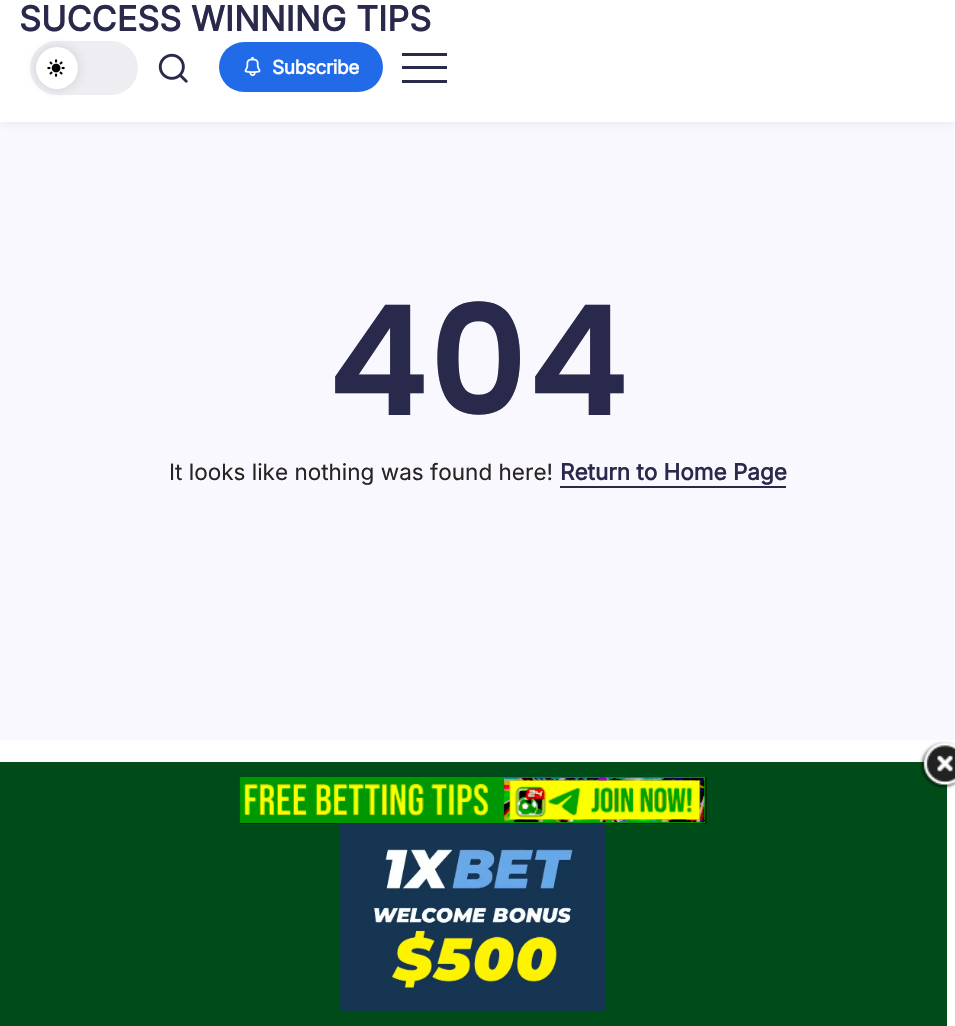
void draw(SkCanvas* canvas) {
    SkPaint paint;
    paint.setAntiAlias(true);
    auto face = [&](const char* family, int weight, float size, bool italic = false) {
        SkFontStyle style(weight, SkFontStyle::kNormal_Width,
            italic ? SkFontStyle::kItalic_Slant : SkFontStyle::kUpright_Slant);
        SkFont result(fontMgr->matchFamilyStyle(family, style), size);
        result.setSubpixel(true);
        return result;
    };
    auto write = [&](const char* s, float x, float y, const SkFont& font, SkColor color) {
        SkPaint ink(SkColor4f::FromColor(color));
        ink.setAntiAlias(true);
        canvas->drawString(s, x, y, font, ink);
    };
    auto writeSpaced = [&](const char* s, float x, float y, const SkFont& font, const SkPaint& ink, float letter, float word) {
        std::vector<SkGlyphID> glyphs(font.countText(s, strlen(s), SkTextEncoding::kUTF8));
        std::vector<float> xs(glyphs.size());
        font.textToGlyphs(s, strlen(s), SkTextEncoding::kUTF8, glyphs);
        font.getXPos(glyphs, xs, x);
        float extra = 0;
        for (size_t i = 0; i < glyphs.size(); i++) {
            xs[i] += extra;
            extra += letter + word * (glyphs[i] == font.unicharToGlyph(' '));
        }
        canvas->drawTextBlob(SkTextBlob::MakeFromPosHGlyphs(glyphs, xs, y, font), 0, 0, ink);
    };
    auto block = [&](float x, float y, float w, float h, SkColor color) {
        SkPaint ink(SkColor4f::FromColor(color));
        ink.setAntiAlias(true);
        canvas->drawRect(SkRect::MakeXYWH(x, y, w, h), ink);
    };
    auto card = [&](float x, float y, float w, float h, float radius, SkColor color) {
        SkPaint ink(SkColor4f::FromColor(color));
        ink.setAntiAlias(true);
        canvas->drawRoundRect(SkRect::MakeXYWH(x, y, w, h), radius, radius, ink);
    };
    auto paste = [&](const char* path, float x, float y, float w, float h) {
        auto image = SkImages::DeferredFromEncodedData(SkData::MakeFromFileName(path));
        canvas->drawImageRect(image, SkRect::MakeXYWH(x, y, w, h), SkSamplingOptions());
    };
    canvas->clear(SkColorSetRGB(250, 248, 255));
    paint.setColor(SkColorSetARGB(13, 14, 14, 19));
    paint.setMaskFilter(SkMaskFilter::MakeBlur(kNormal_SkBlurStyle, 4));
    canvas->drawRect(SkRect::MakeXYWH(0, -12, 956, 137), paint);
    paint.setMaskFilter(nullptr);
    block(0, 0, 955, 122, SK_ColorWHITE);
    auto kFont1 = face("Inter", 700, 34.3f);
    write("SUCCESS WINNING TIPS", 19, 31, kFont1, SkColorSetRGB(41, 41, 75));
    card(30, 41, 108, 54, 27, SkColorSetRGB(238, 238, 242));
    paint.setColor(SkColorSetARGB(46, 47, 49, 57));
    paint.setMaskFilter(SkMaskFilter::MakeBlur(kNormal_SkBlurStyle, 6));
    canvas->drawRoundRect(SkRect::MakeXYWH(36, 47, 42, 42), 21, 21, paint);
    paint.setMaskFilter(nullptr);
    paint.setColor(SK_ColorWHITE);
    canvas->drawCircle(57, 68, 21, paint);
    paste("pic1.png", 47, 59, 18, 18);
    paste("pic2.png", 158, 53, 30, 30);
    card(219, 42, 164, 50, 25, SkColorSetRGB(33, 107, 233));
    paste("pic3.png", 244, 57, 17, 20);
    auto kFont2 = face("Inter", 700, 19);
    writeSpaced("Subscribe", 272, 74, kFont2, paint, -0.4f, 0);
    block(402, 53, 45, 3, SkColorSetRGB(41, 41, 75));
    block(402, 66, 45, 3, SkColorSetRGB(41, 41, 75));
    block(402, 80, 45, 3, SkColorSetRGB(41, 41, 75));
    auto kFont3 = face("Poppins", 600, 153);
    write("404", 328, 415, kFont3, SkColorSetRGB(41, 41, 75));
    auto kFont4 = face("Inter", 400, 22.5f);
    write("It looks like nothing was found here!", 169, 480, kFont4, SkColorSetRGB(40, 36, 36));
    auto kFont5 = face("Inter", 700, 22.5f);
    write("Return to Home Page", 560, 480, kFont5, SkColorSetRGB(41, 41, 75));
    block(560, 486, 226, 2, SkColorSetRGB(41, 41, 75));
    block(0, 740, 955, 286, SK_ColorWHITE);
    block(0, 762, 947, 264, SkColorSetRGB(0, 76, 24));
    paste("pic4.png", 919, 741, 36, 48);
    paste("pic5.png", 239, 777, 468, 47);
    paste("pic6.png", 339, 823, 267, 188);
}
